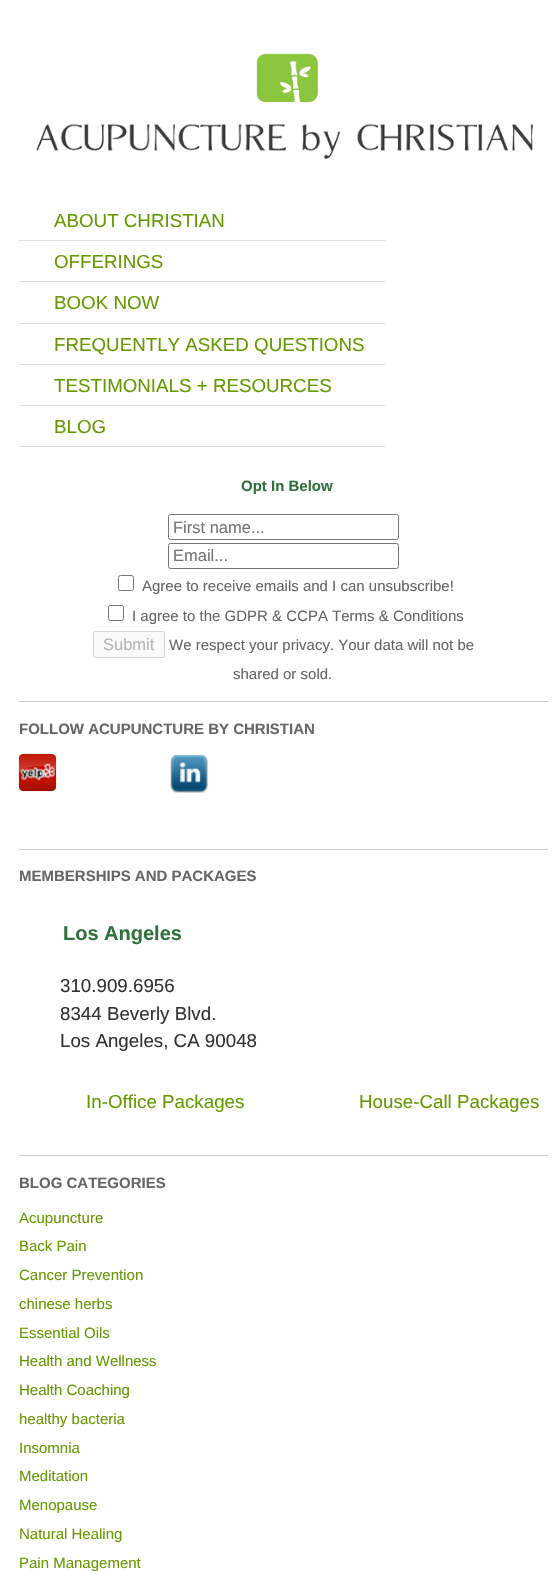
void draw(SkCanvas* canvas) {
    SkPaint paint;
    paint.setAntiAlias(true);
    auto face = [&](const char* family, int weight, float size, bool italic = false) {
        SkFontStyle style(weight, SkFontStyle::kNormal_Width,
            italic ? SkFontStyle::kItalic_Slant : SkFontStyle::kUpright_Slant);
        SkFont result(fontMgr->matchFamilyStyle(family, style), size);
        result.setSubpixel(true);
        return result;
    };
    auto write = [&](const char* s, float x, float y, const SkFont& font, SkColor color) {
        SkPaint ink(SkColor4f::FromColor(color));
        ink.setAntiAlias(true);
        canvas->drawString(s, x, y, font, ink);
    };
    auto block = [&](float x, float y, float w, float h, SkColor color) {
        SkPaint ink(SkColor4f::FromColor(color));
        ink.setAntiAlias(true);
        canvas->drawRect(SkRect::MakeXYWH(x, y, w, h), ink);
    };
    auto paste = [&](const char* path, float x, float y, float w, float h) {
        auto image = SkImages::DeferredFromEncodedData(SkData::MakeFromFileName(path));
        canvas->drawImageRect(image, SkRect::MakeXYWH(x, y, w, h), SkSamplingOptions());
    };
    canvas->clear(SK_ColorWHITE);
    paste("pic1.png", 36, 53, 497, 106);
    block(19, 240, 366, 1, SkColorSetRGB(221, 221, 221));
    auto kFont1 = face("Liberation Sans", 400, 18.75f);
    write("ABOUT CHRISTIAN", 54, 227, kFont1, SkColorSetRGB(102, 153, 0));
    block(19, 281, 366, 1, SkColorSetRGB(221, 221, 221));
    write("OFFERINGS", 54, 268, kFont1, SkColorSetRGB(102, 153, 0));
    block(19, 323, 366, 1, SkColorSetRGB(221, 221, 221));
    write("BOOK NOW", 54, 309, kFont1, SkColorSetRGB(102, 153, 0));
    block(19, 364, 366, 1, SkColorSetRGB(221, 221, 221));
    write("FREQUENTLY ASKED QUESTIONS", 54, 351, kFont1, SkColorSetRGB(102, 153, 0));
    block(19, 405, 366, 1, SkColorSetRGB(221, 221, 221));
    write("TESTIMONIALS + RESOURCES", 54, 392, kFont1, SkColorSetRGB(102, 153, 0));
    block(19, 446, 366, 1, SkColorSetRGB(221, 221, 221));
    write("BLOG", 54, 433, kFont1, SkColorSetRGB(102, 153, 0));
    block(19, 701, 529, 1, SkColorSetRGB(204, 204, 204));
    auto kFont2 = face("Liberation Sans", 700, 15);
    write("Opt In Below", 241, 491, kFont2, SkColorSetRGB(47, 112, 62));
    paint.setStyle(SkPaint::kStroke_Style);
    paint.setStrokeWidth(1);
    paint.setColor(SkColorSetRGB(118, 118, 118));
    canvas->drawRoundRect(SkRect::MakeXYWH(168.5f, 514.5f, 230, 25), 2, 2, paint);
    auto kFont3 = face("Liberation Sans", 400, 16.5f);
    write("First name...", 173, 533, kFont3, SkColorSetRGB(117, 117, 117));
    canvas->drawRoundRect(SkRect::MakeXYWH(168.5f, 543.5f, 230, 25), 2, 2, paint);
    write("Email...", 173, 561, kFont3, SkColorSetRGB(117, 117, 117));
    canvas->drawRoundRect(SkRect::MakeXYWH(118.5f, 575.5f, 15, 15), 2, 2, paint);
    auto kFont4 = face("Liberation Sans", 400, 15);
    write("Agree to receive emails and I can unsubscribe!", 142, 591, kFont4, SkColorSetRGB(102, 102, 102));
    canvas->drawRoundRect(SkRect::MakeXYWH(108.5f, 605.5f, 15, 15), 2, 2, paint);
    write("I agree to the GDPR & CCPA Terms & Conditions", 132, 621, kFont4, SkColorSetRGB(102, 102, 102));
    paint.setStyle(SkPaint::kFill_Style);
    paint.setColor(SkColorSetRGB(250, 250, 250));
    canvas->drawRoundRect(SkRect::MakeXYWH(93.5f, 631.5f, 71, 26), 2, 2, paint);
    paint.setStyle(SkPaint::kStroke_Style);
    paint.setColor(SkColorSetRGB(210, 210, 210));
    canvas->drawRoundRect(SkRect::MakeXYWH(93.5f, 631.5f, 71, 26), 2, 2, paint);
    write("Submit", 103, 650, kFont3, SkColorSetRGB(180, 180, 180));
    write("We respect your privacy. Your data will not be", 169, 650, kFont4, SkColorSetRGB(102, 102, 102));
    write("shared or sold.", 233, 679, kFont4, SkColorSetRGB(102, 102, 102));
    block(19, 849, 529, 1, SkColorSetRGB(204, 204, 204));
    write("FOLLOW ACUPUNCTURE BY CHRISTIAN", 19, 734, kFont2, SkColorSetRGB(102, 102, 102));
    paste("pic2.png", 18, 753, 39, 39);
    paste("pic3.png", 170, 754, 38, 39);
    block(19, 1155, 529, 1, SkColorSetRGB(204, 204, 204));
    write("MEMBERSHIPS AND PACKAGES", 19, 881, kFont2, SkColorSetRGB(102, 102, 102));
    auto kFont5 = face("Liberation Sans", 700, 20);
    write("Los Angeles", 63, 940, kFont5, SkColorSetRGB(47, 112, 62));
    write("310.909.6956", 60, 992, kFont1, SkColorSetRGB(51, 51, 51));
    write("8344 Beverly Blvd.", 60, 1020, kFont1, SkColorSetRGB(51, 51, 51));
    write("Los Angeles, CA 90048", 60, 1047, kFont1, SkColorSetRGB(51, 51, 51));
    write("In-Office Packages", 86, 1108, kFont1, SkColorSetRGB(102, 153, 0));
    write("House-Call Packages", 359, 1108, kFont1, SkColorSetRGB(102, 153, 0));
    write("BLOG CATEGORIES", 19, 1188, kFont2, SkColorSetRGB(102, 102, 102));
    write("Acupuncture", 19, 1223, kFont4, SkColorSetRGB(102, 153, 0));
    write("Back Pain", 19, 1251, kFont4, SkColorSetRGB(102, 153, 0));
    write("Cancer Prevention", 19, 1280, kFont4, SkColorSetRGB(102, 153, 0));
    write("chinese herbs", 19, 1309, kFont4, SkColorSetRGB(102, 153, 0));
    write("Essential Oils", 19, 1338, kFont4, SkColorSetRGB(102, 153, 0));
    write("Health and Wellness", 19, 1366, kFont4, SkColorSetRGB(102, 153, 0));
    write("Health Coaching", 19, 1395, kFont4, SkColorSetRGB(102, 153, 0));
    write("healthy bacteria", 19, 1424, kFont4, SkColorSetRGB(102, 153, 0));
    write("Insomnia", 19, 1453, kFont4, SkColorSetRGB(102, 153, 0));
    write("Meditation", 19, 1481, kFont4, SkColorSetRGB(102, 153, 0));
    write("Menopause", 19, 1510, kFont4, SkColorSetRGB(102, 153, 0));
    write("Natural Healing", 19, 1539, kFont4, SkColorSetRGB(102, 153, 0));
    write("Pain Management", 19, 1568, kFont4, SkColorSetRGB(102, 153, 0));
}
